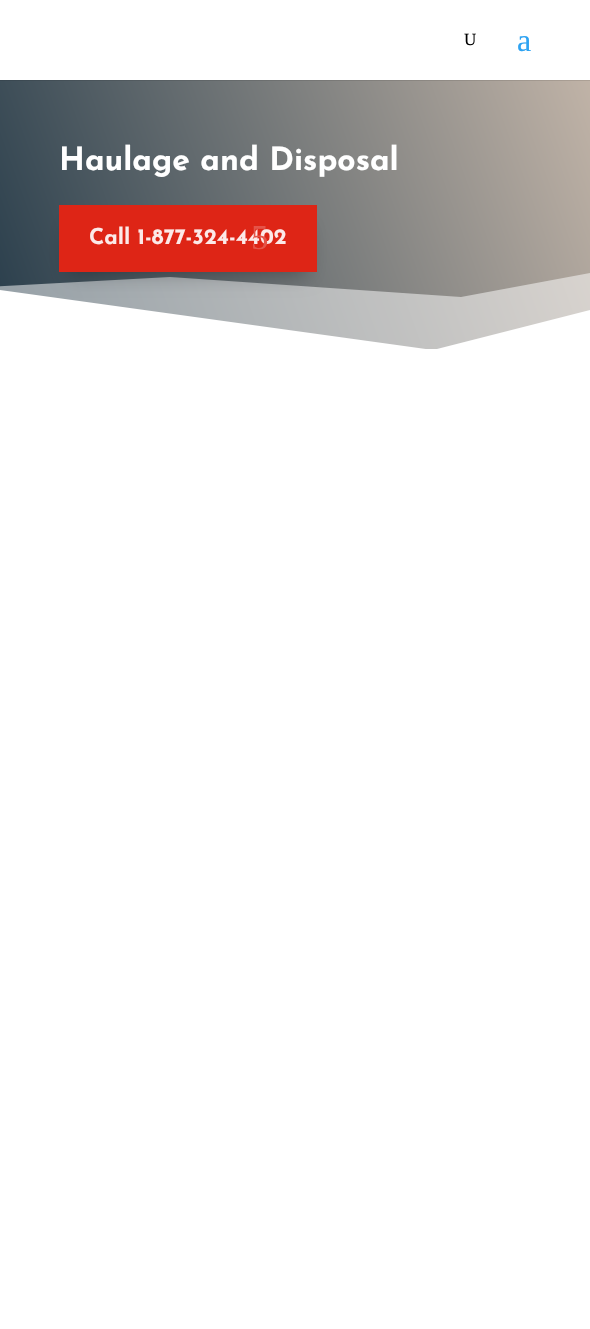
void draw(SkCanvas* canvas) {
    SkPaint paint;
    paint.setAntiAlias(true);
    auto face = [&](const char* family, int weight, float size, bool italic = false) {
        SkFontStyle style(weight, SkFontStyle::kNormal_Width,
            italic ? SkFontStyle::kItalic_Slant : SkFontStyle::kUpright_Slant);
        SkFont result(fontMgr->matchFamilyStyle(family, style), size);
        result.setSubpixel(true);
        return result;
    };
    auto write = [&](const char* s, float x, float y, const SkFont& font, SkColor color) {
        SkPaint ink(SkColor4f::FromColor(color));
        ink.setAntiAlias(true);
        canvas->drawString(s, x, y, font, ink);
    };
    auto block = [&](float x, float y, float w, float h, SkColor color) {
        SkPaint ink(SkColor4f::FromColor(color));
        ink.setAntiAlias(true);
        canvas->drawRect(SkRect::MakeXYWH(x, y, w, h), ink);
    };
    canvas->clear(SK_ColorWHITE);
    auto kFont1 = face("Liberation Serif", 400, 17);
    write("U", 464, 45, kFont1, SK_ColorBLACK);
    auto kFont2 = face("Liberation Serif", 400, 32);
    write("a", 517, 51, kFont2, SkColorSetRGB(46, 163, 242));
    {
        const SkColor colors[] = {SkColorSetRGB(40, 61, 75), SkColorSetRGB(192, 179, 167)};
        const float stops[] = {0, 1};
        const SkPoint ends[] = {{-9, 324}, {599, 103}};
        paint.setShader(SkGradientShader::MakeLinear(ends, colors, stops, 2, SkTileMode::kClamp));
        paint.setAlpha(255);
    }
    canvas->drawRect(SkRect::MakeXYWH(0, 81, 590, 268), paint);
    {
        const SkColor colors[] = {SkColorSetRGB(36, 55, 68), SkColorSetRGB(173, 161, 150)};
        const float stops[] = {0, 1};
        const SkPoint ends[] = {{-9, 324}, {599, 103}};
        paint.setShader(SkGradientShader::MakeLinear(ends, colors, stops, 2, SkTileMode::kClamp));
        paint.setAlpha(255);
    }
    canvas->drawRect(SkRect::MakeXYWH(0, 80, 590, 1), paint);
    auto kFont3 = face("Josefin Sans", 700, 32);
    write("Haulage and Disposal", 59, 170, kFont3, SK_ColorWHITE);
    paint.setShader(nullptr);
    paint.setColor(SkColorSetARGB(128, 255, 255, 255));
    canvas->drawPath(SkPathBuilder().moveTo(590, 273).lineTo(461, 297).lineTo(170, 277).lineTo(-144, 294).lineTo(-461, 261).lineTo(-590, 273).lineTo(-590, 350).lineTo(590, 350).close().detach(), paint);
    paint.setColor(SK_ColorWHITE);
    canvas->drawPath(SkPathBuilder().moveTo(590, 350).lineTo(590, 310).lineTo(433, 350).lineTo(-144, 270).lineTo(-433, 276).lineTo(-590, 310).lineTo(-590, 350).close().detach(), paint);
    paint.setColor(SkColorSetARGB(77, 0, 0, 0));
    paint.setMaskFilter(SkMaskFilter::MakeBlur(kNormal_SkBlurStyle, 10));
    canvas->drawRect(SkRect::MakeXYWH(69, 227, 238, 47), paint);
    paint.setMaskFilter(nullptr);
    block(59, 205, 258, 67, SkColorSetRGB(222, 37, 22));
    auto kFont4 = face("Josefin Sans", 700, 22);
    write("Call 1-877-324-4402", 89, 244, kFont4, SkColorSetRGB(252, 233, 232));
    auto kFont5 = face("Liberation Serif", 400, 35);
    write("5", 251, 249, kFont5, SkColorSetRGB(229, 84, 73));
}
